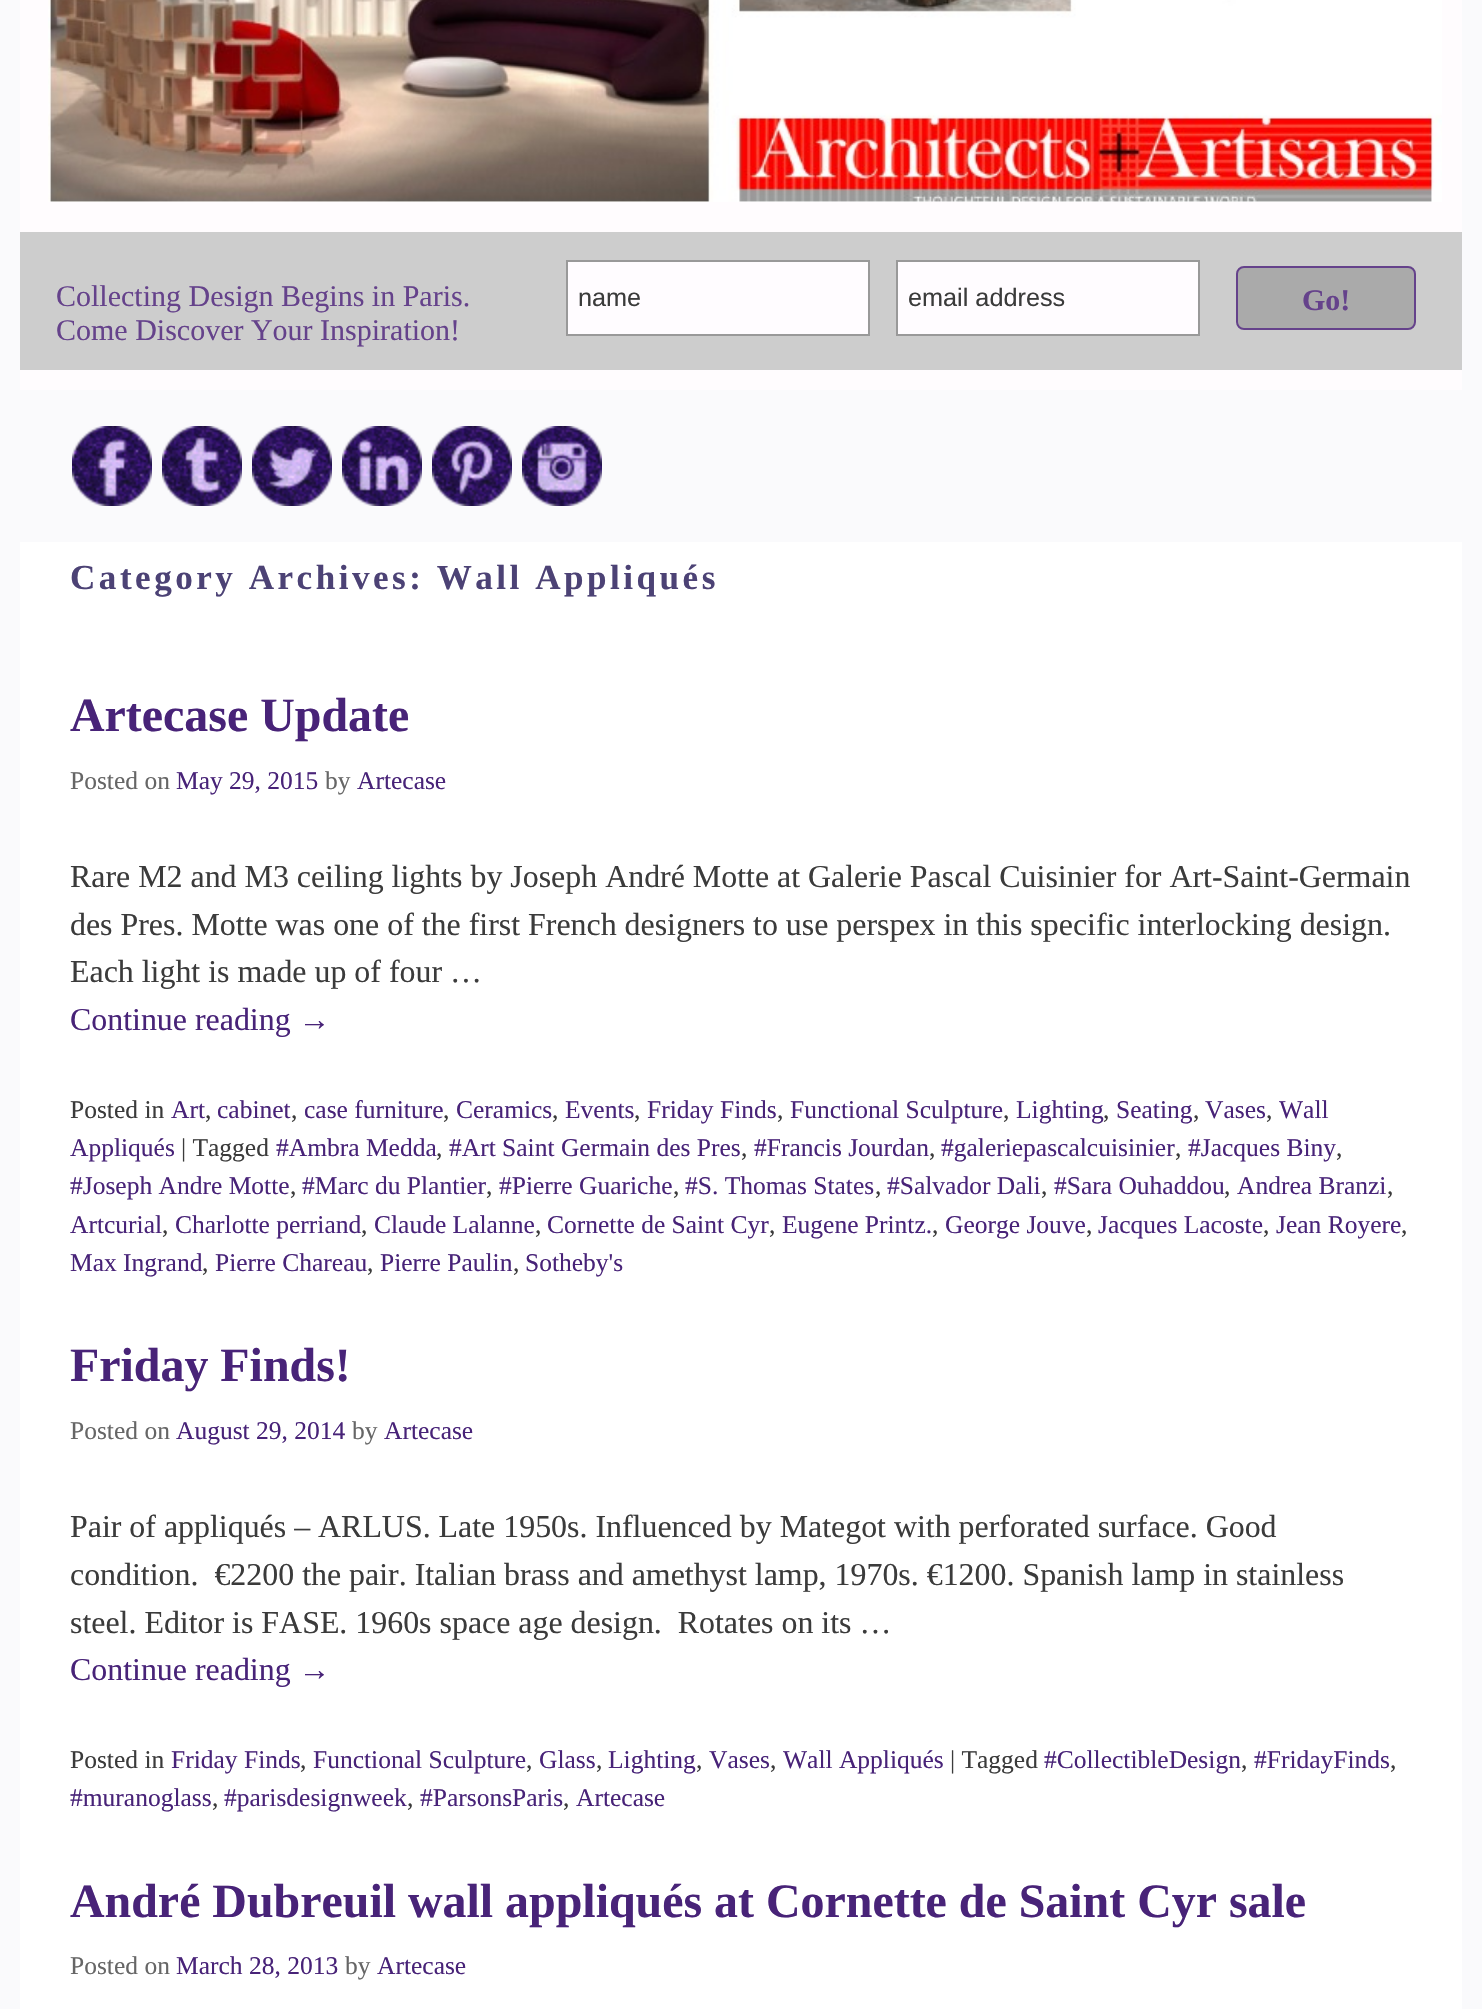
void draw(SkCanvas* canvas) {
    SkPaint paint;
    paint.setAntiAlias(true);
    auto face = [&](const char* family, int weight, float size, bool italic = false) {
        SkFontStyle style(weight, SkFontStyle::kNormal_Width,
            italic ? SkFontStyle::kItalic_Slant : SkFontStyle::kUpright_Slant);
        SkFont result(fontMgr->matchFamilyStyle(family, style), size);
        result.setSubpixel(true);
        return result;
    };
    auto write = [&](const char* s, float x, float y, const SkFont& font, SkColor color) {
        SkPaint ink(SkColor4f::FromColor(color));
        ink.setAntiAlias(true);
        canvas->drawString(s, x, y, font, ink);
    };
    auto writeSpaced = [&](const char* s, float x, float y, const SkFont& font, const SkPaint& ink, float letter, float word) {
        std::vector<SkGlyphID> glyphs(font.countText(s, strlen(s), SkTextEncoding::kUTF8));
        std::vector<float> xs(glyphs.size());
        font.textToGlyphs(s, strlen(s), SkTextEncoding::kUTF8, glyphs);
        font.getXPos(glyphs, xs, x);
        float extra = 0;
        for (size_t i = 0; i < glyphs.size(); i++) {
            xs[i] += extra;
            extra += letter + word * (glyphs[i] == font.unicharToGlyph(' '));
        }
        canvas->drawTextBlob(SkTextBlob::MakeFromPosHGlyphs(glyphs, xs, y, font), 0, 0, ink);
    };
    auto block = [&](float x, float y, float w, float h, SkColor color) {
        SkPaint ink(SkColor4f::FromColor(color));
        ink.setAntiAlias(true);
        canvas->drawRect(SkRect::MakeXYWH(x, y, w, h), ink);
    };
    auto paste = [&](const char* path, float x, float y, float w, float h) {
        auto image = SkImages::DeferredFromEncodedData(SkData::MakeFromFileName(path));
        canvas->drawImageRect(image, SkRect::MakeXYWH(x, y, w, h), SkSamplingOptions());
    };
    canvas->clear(SkColorSetRGB(250, 250, 252));
    block(20, 0, 1442, 390, SkColorSetRGB(255, 252, 254));
    paste("pic1.png", 48, 0, 1394, 202);
    block(20, 232, 1442, 138, SkColorSetRGB(205, 205, 205));
    auto kFont1 = face("Liberation Serif", 400, 30);
    write("Collecting Design Begins in Paris.", 56, 306, kFont1, SkColorSetRGB(101, 66, 139));
    write("Come Discover Your Inspiration!", 56, 340, kFont1, SkColorSetRGB(101, 66, 139));
    paint.setColor(SkColorSetRGB(255, 252, 255));
    canvas->drawRect(SkRect::MakeXYWH(567, 261, 302, 74), paint);
    paint.setStyle(SkPaint::kStroke_Style);
    paint.setStrokeWidth(2);
    paint.setColor(SkColorSetRGB(153, 153, 153));
    canvas->drawRect(SkRect::MakeXYWH(567, 261, 302, 74), paint);
    auto kFont2 = face("Liberation Sans", 400, 25.25f);
    write("name", 578, 306, kFont2, SkColorSetRGB(59, 59, 59));
    paint.setStyle(SkPaint::kFill_Style);
    paint.setColor(SkColorSetRGB(255, 252, 255));
    canvas->drawRect(SkRect::MakeXYWH(897, 261, 302, 74), paint);
    paint.setStyle(SkPaint::kStroke_Style);
    paint.setColor(SkColorSetRGB(153, 153, 153));
    canvas->drawRect(SkRect::MakeXYWH(897, 261, 302, 74), paint);
    write("email address", 908, 306, kFont2, SkColorSetRGB(59, 59, 59));
    paint.setStyle(SkPaint::kFill_Style);
    paint.setColor(SkColorSetRGB(170, 170, 170));
    canvas->drawRoundRect(SkRect::MakeXYWH(1237, 267, 178, 62), 7, 7, paint);
    paint.setStyle(SkPaint::kStroke_Style);
    paint.setColor(SkColorSetRGB(101, 66, 139));
    canvas->drawRoundRect(SkRect::MakeXYWH(1237, 267, 178, 62), 7, 7, paint);
    auto kFont3 = face("Liberation Serif", 700, 30);
    write("Go!", 1302, 310, kFont3, SkColorSetRGB(101, 66, 139));
    paste("pic2.png", 72, 426, 80, 80);
    paste("pic3.png", 162, 426, 80, 80);
    paste("pic4.png", 252, 426, 80, 80);
    paste("pic5.png", 342, 426, 80, 80);
    paste("pic6.png", 432, 426, 80, 80);
    paste("pic7.png", 522, 426, 80, 80);
    block(20, 542, 1442, 1467, SK_ColorWHITE);
    auto kFont4 = face("Liberation Serif", 700, 35.1f);
    paint.setStyle(SkPaint::kFill_Style);
    paint.setColor(SkColorSetRGB(76, 66, 117));
    writeSpaced("Category Archives: Wall Appliqués", 70, 589, kFont4, paint, 3.5f, 0);
    auto kFont5 = face("Liberation Serif", 700, 47.9f);
    write("Artecase Update", 70, 731, kFont5, SkColorSetRGB(72, 35, 120));
    auto kFont6 = face("Liberation Serif", 400, 25.5f);
    write("Posted on", 70, 789, kFont6, SkColorSetRGB(102, 102, 102));
    write("May 29, 2015", 176, 789, kFont6, SkColorSetRGB(72, 35, 120));
    write("by", 325, 789, kFont6, SkColorSetRGB(102, 102, 102));
    write("Artecase", 357, 789, kFont6, SkColorSetRGB(72, 35, 120));
    auto kFont7 = face("Liberation Serif", 400, 31.9f);
    write("Rare M2 and M3 ceiling lights by Joseph André Motte at Galerie Pascal Cuisinier for Art-Saint-Germain", 70, 887, kFont7, SkColorSetRGB(59, 59, 59));
    write("des Pres. Motte was one of the first French designers to use perspex in this specific interlocking design.", 70, 935, kFont7, SkColorSetRGB(59, 59, 59));
    write("Each light is made up of four …", 70, 982, kFont7, SkColorSetRGB(59, 59, 59));
    write("Continue reading →", 70, 1030, kFont7, SkColorSetRGB(72, 35, 120));
    write("Posted in", 70, 1118, kFont6, SkColorSetRGB(59, 59, 59));
    write("Art", 171, 1118, kFont6, SkColorSetRGB(72, 35, 120));
    write(",", 205, 1118, kFont6, SkColorSetRGB(59, 59, 59));
    write("cabinet", 217, 1118, kFont6, SkColorSetRGB(72, 35, 120));
    write(",", 291, 1118, kFont6, SkColorSetRGB(59, 59, 59));
    write("case furniture", 304, 1118, kFont6, SkColorSetRGB(72, 35, 120));
    write(",", 443, 1118, kFont6, SkColorSetRGB(59, 59, 59));
    write("Ceramics", 456, 1118, kFont6, SkColorSetRGB(72, 35, 120));
    write(",", 552, 1118, kFont6, SkColorSetRGB(59, 59, 59));
    write("Events", 565, 1118, kFont6, SkColorSetRGB(72, 35, 120));
    write(",", 634, 1118, kFont6, SkColorSetRGB(59, 59, 59));
    write("Friday Finds", 647, 1118, kFont6, SkColorSetRGB(72, 35, 120));
    write(",", 777, 1118, kFont6, SkColorSetRGB(59, 59, 59));
    write("Functional Sculpture", 790, 1118, kFont6, SkColorSetRGB(72, 35, 120));
    write(",", 1003, 1118, kFont6, SkColorSetRGB(59, 59, 59));
    write("Lighting", 1016, 1118, kFont6, SkColorSetRGB(72, 35, 120));
    write(",", 1103, 1118, kFont6, SkColorSetRGB(59, 59, 59));
    write("Seating", 1116, 1118, kFont6, SkColorSetRGB(72, 35, 120));
    write(",", 1193, 1118, kFont6, SkColorSetRGB(59, 59, 59));
    write("Vases", 1205, 1118, kFont6, SkColorSetRGB(72, 35, 120));
    write(",", 1266, 1118, kFont6, SkColorSetRGB(59, 59, 59));
    write("Wall", 1279, 1118, kFont6, SkColorSetRGB(72, 35, 120));
    write("Appliqués", 70, 1156, kFont6, SkColorSetRGB(72, 35, 120));
    write("| Tagged", 181, 1156, kFont6, SkColorSetRGB(59, 59, 59));
    write("#Ambra Medda", 276, 1156, kFont6, SkColorSetRGB(72, 35, 120));
    write(",", 436, 1156, kFont6, SkColorSetRGB(59, 59, 59));
    write("#Art Saint Germain des Pres", 449, 1156, kFont6, SkColorSetRGB(72, 35, 120));
    write(",", 741, 1156, kFont6, SkColorSetRGB(59, 59, 59));
    write("#Francis Jourdan", 754, 1156, kFont6, SkColorSetRGB(72, 35, 120));
    write(",", 929, 1156, kFont6, SkColorSetRGB(59, 59, 59));
    write("#galeriepascalcuisinier", 941, 1156, kFont6, SkColorSetRGB(72, 35, 120));
    write(",", 1175, 1156, kFont6, SkColorSetRGB(59, 59, 59));
    write("#Jacques Biny", 1188, 1156, kFont6, SkColorSetRGB(72, 35, 120));
    write(",", 1336, 1156, kFont6, SkColorSetRGB(59, 59, 59));
    write("#Joseph Andre Motte", 70, 1194, kFont6, SkColorSetRGB(72, 35, 120));
    write(",", 290, 1194, kFont6, SkColorSetRGB(59, 59, 59));
    write("#Marc du Plantier", 302, 1194, kFont6, SkColorSetRGB(72, 35, 120));
    write(",", 486, 1194, kFont6, SkColorSetRGB(59, 59, 59));
    write("#Pierre Guariche", 499, 1194, kFont6, SkColorSetRGB(72, 35, 120));
    write(",", 673, 1194, kFont6, SkColorSetRGB(59, 59, 59));
    write("#S. Thomas States", 685, 1194, kFont6, SkColorSetRGB(72, 35, 120));
    write(",", 875, 1194, kFont6, SkColorSetRGB(59, 59, 59));
    write("#Salvador Dali", 887, 1194, kFont6, SkColorSetRGB(72, 35, 120));
    write(",", 1041, 1194, kFont6, SkColorSetRGB(59, 59, 59));
    write("#Sara Ouhaddou", 1054, 1194, kFont6, SkColorSetRGB(72, 35, 120));
    write(",", 1224, 1194, kFont6, SkColorSetRGB(59, 59, 59));
    write("Andrea Branzi", 1237, 1194, kFont6, SkColorSetRGB(72, 35, 120));
    write(",", 1387, 1194, kFont6, SkColorSetRGB(59, 59, 59));
    write("Artcurial", 70, 1233, kFont6, SkColorSetRGB(72, 35, 120));
    write(",", 162, 1233, kFont6, SkColorSetRGB(59, 59, 59));
    write("Charlotte perriand", 175, 1233, kFont6, SkColorSetRGB(72, 35, 120));
    write(",", 361, 1233, kFont6, SkColorSetRGB(59, 59, 59));
    write("Claude Lalanne", 374, 1233, kFont6, SkColorSetRGB(72, 35, 120));
    write(",", 535, 1233, kFont6, SkColorSetRGB(59, 59, 59));
    write("Cornette de Saint Cyr", 547, 1233, kFont6, SkColorSetRGB(72, 35, 120));
    write(",", 769, 1233, kFont6, SkColorSetRGB(59, 59, 59));
    write("Eugene Printz.", 782, 1233, kFont6, SkColorSetRGB(72, 35, 120));
    write(",", 932, 1233, kFont6, SkColorSetRGB(59, 59, 59));
    write("George Jouve", 945, 1233, kFont6, SkColorSetRGB(72, 35, 120));
    write(",", 1086, 1233, kFont6, SkColorSetRGB(59, 59, 59));
    write("Jacques Lacoste", 1098, 1233, kFont6, SkColorSetRGB(72, 35, 120));
    write(",", 1263, 1233, kFont6, SkColorSetRGB(59, 59, 59));
    write("Jean Royere", 1276, 1233, kFont6, SkColorSetRGB(72, 35, 120));
    write(",", 1401, 1233, kFont6, SkColorSetRGB(59, 59, 59));
    write("Max Ingrand", 70, 1271, kFont6, SkColorSetRGB(72, 35, 120));
    write(",", 202, 1271, kFont6, SkColorSetRGB(59, 59, 59));
    write("Pierre Chareau", 215, 1271, kFont6, SkColorSetRGB(72, 35, 120));
    write(",", 367, 1271, kFont6, SkColorSetRGB(59, 59, 59));
    write("Pierre Paulin", 380, 1271, kFont6, SkColorSetRGB(72, 35, 120));
    write(",", 513, 1271, kFont6, SkColorSetRGB(59, 59, 59));
    write("Sotheby's", 525, 1271, kFont6, SkColorSetRGB(72, 35, 120));
    write("Friday Finds!", 70, 1381, kFont5, SkColorSetRGB(72, 35, 120));
    write("Posted on", 70, 1439, kFont6, SkColorSetRGB(102, 102, 102));
    write("August 29, 2014", 176, 1439, kFont6, SkColorSetRGB(72, 35, 120));
    write("by", 352, 1439, kFont6, SkColorSetRGB(102, 102, 102));
    write("Artecase", 384, 1439, kFont6, SkColorSetRGB(72, 35, 120));
    write("Pair of appliqués – ARLUS. Late 1950s. Influenced by Mategot with perforated surface. Good", 70, 1537, kFont7, SkColorSetRGB(59, 59, 59));
    write("condition.  €2200 the pair. Italian brass and amethyst lamp, 1970s. €1200. Spanish lamp in stainless", 70, 1585, kFont7, SkColorSetRGB(59, 59, 59));
    write("steel. Editor is FASE. 1960s space age design.  Rotates on its …", 70, 1633, kFont7, SkColorSetRGB(59, 59, 59));
    write("Continue reading →", 70, 1680, kFont7, SkColorSetRGB(72, 35, 120));
    write("Posted in", 70, 1768, kFont6, SkColorSetRGB(59, 59, 59));
    write("Friday Finds", 171, 1768, kFont6, SkColorSetRGB(72, 35, 120));
    write(",", 300, 1768, kFont6, SkColorSetRGB(59, 59, 59));
    write("Functional Sculpture", 313, 1768, kFont6, SkColorSetRGB(72, 35, 120));
    write(",", 526, 1768, kFont6, SkColorSetRGB(59, 59, 59));
    write("Glass", 539, 1768, kFont6, SkColorSetRGB(72, 35, 120));
    write(",", 596, 1768, kFont6, SkColorSetRGB(59, 59, 59));
    write("Lighting", 608, 1768, kFont6, SkColorSetRGB(72, 35, 120));
    write(",", 696, 1768, kFont6, SkColorSetRGB(59, 59, 59));
    write("Vases", 709, 1768, kFont6, SkColorSetRGB(72, 35, 120));
    write(",", 770, 1768, kFont6, SkColorSetRGB(59, 59, 59));
    write("Wall Appliqués", 783, 1768, kFont6, SkColorSetRGB(72, 35, 120));
    write("| Tagged", 950, 1768, kFont6, SkColorSetRGB(59, 59, 59));
    write("#CollectibleDesign", 1044, 1768, kFont6, SkColorSetRGB(72, 35, 120));
    write(",", 1241, 1768, kFont6, SkColorSetRGB(59, 59, 59));
    write("#FridayFinds", 1254, 1768, kFont6, SkColorSetRGB(72, 35, 120));
    write(",", 1390, 1768, kFont6, SkColorSetRGB(59, 59, 59));
    write("#muranoglass", 70, 1806, kFont6, SkColorSetRGB(72, 35, 120));
    write(",", 212, 1806, kFont6, SkColorSetRGB(59, 59, 59));
    write("#parisdesignweek", 224, 1806, kFont6, SkColorSetRGB(72, 35, 120));
    write(",", 407, 1806, kFont6, SkColorSetRGB(59, 59, 59));
    write("#ParsonsParis", 420, 1806, kFont6, SkColorSetRGB(72, 35, 120));
    write(",", 563, 1806, kFont6, SkColorSetRGB(59, 59, 59));
    write("Artecase", 576, 1806, kFont6, SkColorSetRGB(72, 35, 120));
    write("André Dubreuil wall appliqués at Cornette de Saint Cyr sale", 70, 1917, kFont5, SkColorSetRGB(72, 35, 120));
    write("Posted on", 70, 1974, kFont6, SkColorSetRGB(102, 102, 102));
    write("March 28, 2013", 176, 1974, kFont6, SkColorSetRGB(72, 35, 120));
    write("by", 345, 1974, kFont6, SkColorSetRGB(102, 102, 102));
    write("Artecase", 377, 1974, kFont6, SkColorSetRGB(72, 35, 120));
}
